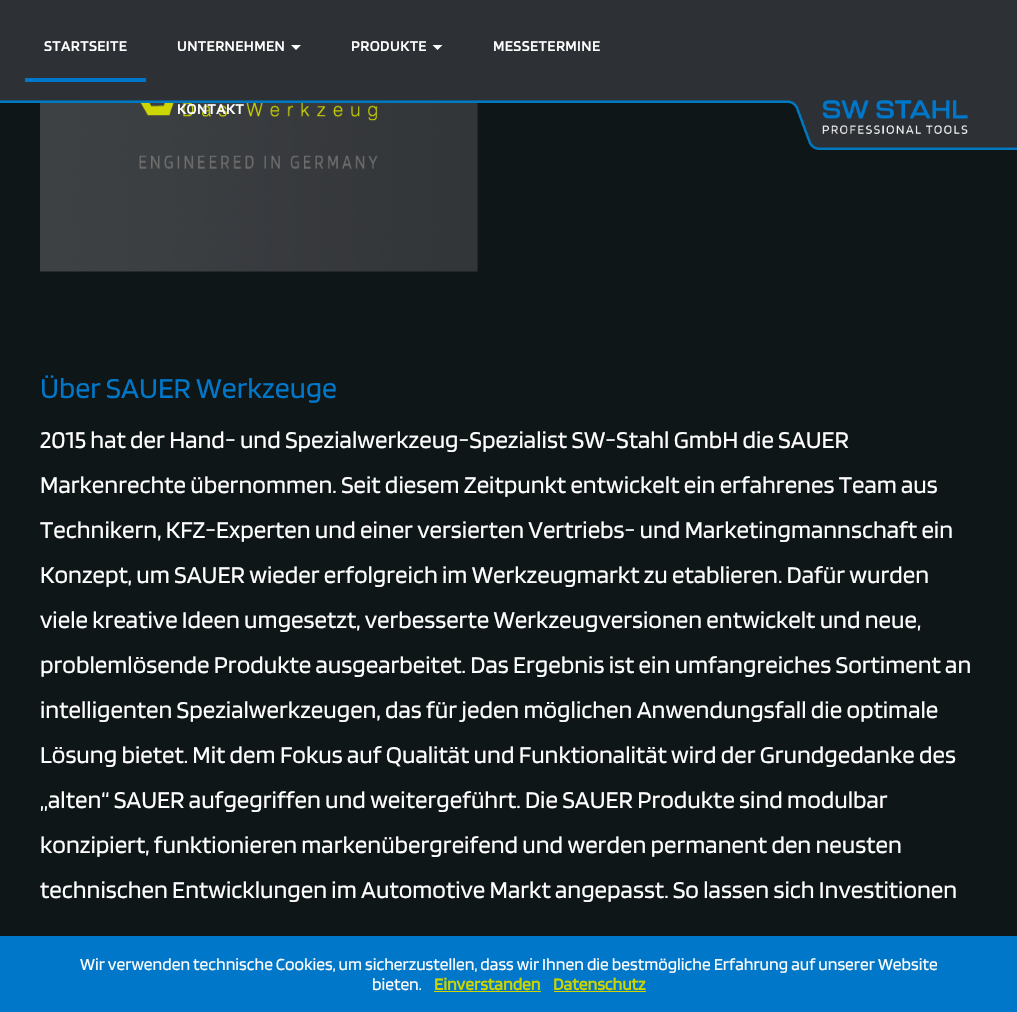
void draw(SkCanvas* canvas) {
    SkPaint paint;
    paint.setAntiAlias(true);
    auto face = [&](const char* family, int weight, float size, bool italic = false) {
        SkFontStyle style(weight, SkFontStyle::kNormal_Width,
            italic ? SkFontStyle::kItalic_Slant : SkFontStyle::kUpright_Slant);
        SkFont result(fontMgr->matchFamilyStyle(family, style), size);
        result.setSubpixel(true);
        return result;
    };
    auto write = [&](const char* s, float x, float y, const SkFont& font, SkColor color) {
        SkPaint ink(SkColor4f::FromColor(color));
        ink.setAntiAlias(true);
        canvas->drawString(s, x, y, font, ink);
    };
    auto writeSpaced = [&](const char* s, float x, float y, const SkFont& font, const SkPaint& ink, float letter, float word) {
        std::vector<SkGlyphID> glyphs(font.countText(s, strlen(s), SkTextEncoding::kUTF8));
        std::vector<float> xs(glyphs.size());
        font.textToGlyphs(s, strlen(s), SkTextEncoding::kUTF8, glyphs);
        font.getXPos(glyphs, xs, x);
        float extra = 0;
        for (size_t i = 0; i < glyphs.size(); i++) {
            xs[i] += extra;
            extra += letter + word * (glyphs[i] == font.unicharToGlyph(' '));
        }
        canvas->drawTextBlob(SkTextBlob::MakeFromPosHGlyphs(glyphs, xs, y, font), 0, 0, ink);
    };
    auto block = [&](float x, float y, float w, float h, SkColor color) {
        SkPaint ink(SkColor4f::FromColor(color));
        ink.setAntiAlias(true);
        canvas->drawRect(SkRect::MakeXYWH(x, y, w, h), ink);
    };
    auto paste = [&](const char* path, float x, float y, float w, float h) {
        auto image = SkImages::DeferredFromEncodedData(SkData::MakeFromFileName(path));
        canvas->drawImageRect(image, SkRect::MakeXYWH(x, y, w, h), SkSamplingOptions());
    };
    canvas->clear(SkColorSetRGB(15, 22, 24));
    block(0, 0, 1017, 100, SkColorSetRGB(45, 48, 53));
    block(25, 78, 121, 4, SkColorSetRGB(0, 119, 200));
    auto kFont1 = face("Blinker", 700, 15);
    paint.setColor(SK_ColorWHITE);
    writeSpaced("STARTSEITE", 44, 51, kFont1, paint, 0.75f, 0);
    writeSpaced("UNTERNEHMEN", 177, 51, kFont1, paint, 0.75f, 0);
    canvas->drawPath(SkPathBuilder().moveTo(291, 45).lineTo(301, 45).lineTo(296, 50).close().detach(), paint);
    writeSpaced("PRODUKTE", 351, 51, kFont1, paint, 0.75f, 0);
    canvas->drawPath(SkPathBuilder().moveTo(432.5f, 45).lineTo(442.5f, 45).lineTo(437.5f, 50).close().detach(), paint);
    writeSpaced("MESSETERMINE", 493, 51, kFont1, paint, 0.75f, 0);
    paste("pic2.png", 40, 103, 438, 169);
    paste("pic1.png", 0, 100, 1017, 50);
    writeSpaced("KONTAKT", 177, 114, kFont1, paint, 0.75f, 0);
    auto kFont2 = face("Blinker", 400, 30);
    write("Über SAUER Werkzeuge", 40, 398, kFont2, SkColorSetRGB(0, 119, 200));
    auto kFont3 = face("Blinker", 400, 25);
    write("2015 hat der Hand- und Spezialwerkzeug-Spezialist SW-Stahl GmbH die SAUER", 40, 448, kFont3, SK_ColorWHITE);
    write("Markenrechte übernommen. Seit diesem Zeitpunkt entwickelt ein erfahrenes Team aus", 40, 493, kFont3, SK_ColorWHITE);
    write("Technikern, KFZ-Experten und einer versierten Vertriebs- und Marketingmannschaft ein", 40, 538, kFont3, SK_ColorWHITE);
    write("Konzept, um SAUER wieder erfolgreich im Werkzeugmarkt zu etablieren. Dafür wurden", 40, 583, kFont3, SK_ColorWHITE);
    write("viele kreative Ideen umgesetzt, verbesserte Werkzeugversionen entwickelt und neue,", 40, 628, kFont3, SK_ColorWHITE);
    write("problemlösende Produkte ausgearbeitet. Das Ergebnis ist ein umfangreiches Sortiment an", 40, 673, kFont3, SK_ColorWHITE);
    write("intelligenten Spezialwerkzeugen, das für jeden möglichen Anwendungsfall die optimale", 40, 718, kFont3, SK_ColorWHITE);
    write("Lösung bietet. Mit dem Fokus auf Qualität und Funktionalität wird der Grundgedanke des", 40, 763, kFont3, SK_ColorWHITE);
    write("„alten“ SAUER aufgegriffen und weitergeführt. Die SAUER Produkte sind modulbar", 40, 808, kFont3, SK_ColorWHITE);
    write("konzipiert, funktionieren markenübergreifend und werden permanent den neusten", 40, 853, kFont3, SK_ColorWHITE);
    write("technischen Entwicklungen im Automotive Markt angepasst. So lassen sich Investitionen", 40, 898, kFont3, SK_ColorWHITE);
    block(0, 936, 1017, 76, SkColorSetRGB(0, 119, 200));
    auto kFont4 = face("Blinker", 400, 17.5f);
    write("Wir verwenden technische Cookies, um sicherzustellen, dass wir Ihnen die bestmögliche Erfahrung auf unserer Website", 80, 970, kFont4, SK_ColorWHITE);
    write("bieten.", 372, 990, kFont4, SK_ColorWHITE);
    auto kFont5 = face("Blinker", 700, 17.5f);
    write("Einverstanden", 434, 990, kFont5, SkColorSetRGB(205, 213, 0));
    block(434, 991, 107, 1, SkColorSetRGB(205, 213, 0));
    write("Datenschutz", 553, 990, kFont5, SkColorSetRGB(205, 213, 0));
    block(554, 991, 92, 1, SkColorSetRGB(205, 213, 0));
}
